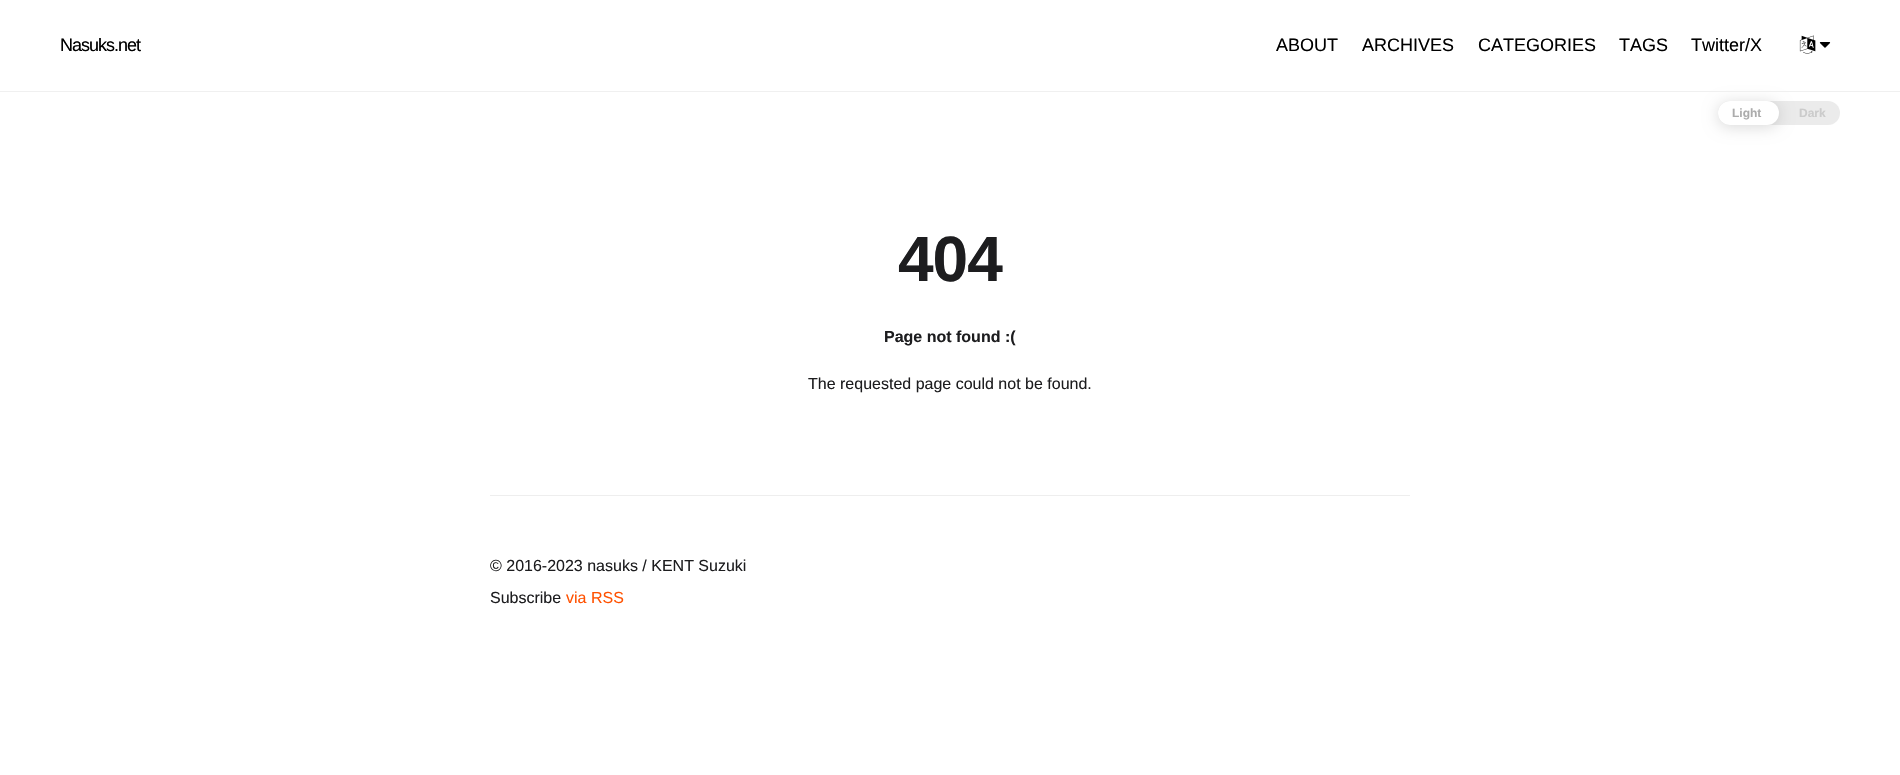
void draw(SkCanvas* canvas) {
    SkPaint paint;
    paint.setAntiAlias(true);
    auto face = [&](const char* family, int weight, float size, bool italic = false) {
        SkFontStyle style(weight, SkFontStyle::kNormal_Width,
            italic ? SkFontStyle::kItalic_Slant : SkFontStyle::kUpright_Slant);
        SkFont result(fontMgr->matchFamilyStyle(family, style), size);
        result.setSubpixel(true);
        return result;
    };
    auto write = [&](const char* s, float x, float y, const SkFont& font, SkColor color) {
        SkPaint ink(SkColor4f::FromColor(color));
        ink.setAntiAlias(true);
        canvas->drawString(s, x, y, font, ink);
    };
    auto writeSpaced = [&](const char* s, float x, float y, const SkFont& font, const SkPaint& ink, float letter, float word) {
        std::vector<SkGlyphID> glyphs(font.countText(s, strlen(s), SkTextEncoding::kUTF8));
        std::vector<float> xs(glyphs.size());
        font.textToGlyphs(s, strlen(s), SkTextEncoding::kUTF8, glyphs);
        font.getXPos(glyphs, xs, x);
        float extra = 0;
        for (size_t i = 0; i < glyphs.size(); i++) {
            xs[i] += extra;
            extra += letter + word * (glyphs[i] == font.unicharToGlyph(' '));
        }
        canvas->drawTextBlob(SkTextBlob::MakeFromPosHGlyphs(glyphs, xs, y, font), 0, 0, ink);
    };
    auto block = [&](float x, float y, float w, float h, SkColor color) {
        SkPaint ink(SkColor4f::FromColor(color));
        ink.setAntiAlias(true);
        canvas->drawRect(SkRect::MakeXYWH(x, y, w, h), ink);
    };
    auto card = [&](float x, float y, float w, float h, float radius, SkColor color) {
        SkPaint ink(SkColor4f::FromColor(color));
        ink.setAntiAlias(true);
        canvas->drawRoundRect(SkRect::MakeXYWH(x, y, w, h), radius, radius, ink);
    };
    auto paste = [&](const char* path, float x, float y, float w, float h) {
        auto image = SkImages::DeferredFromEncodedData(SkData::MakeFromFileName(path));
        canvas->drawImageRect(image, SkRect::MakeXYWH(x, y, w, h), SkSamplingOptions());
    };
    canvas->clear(SK_ColorWHITE);
    card(1718, 101, 122, 24, 12, SkColorSetRGB(235, 235, 235));
    paint.setColor(SkColorSetARGB(38, 0, 0, 0));
    paint.setMaskFilter(SkMaskFilter::MakeBlur(kNormal_SkBlurStyle, 7.5f));
    canvas->drawRoundRect(SkRect::MakeXYWH(1718, 103, 61, 24), 12, 12, paint);
    paint.setMaskFilter(nullptr);
    paint.setColor(SkColorSetRGB(240, 240, 240));
    canvas->drawPath(SkPathBuilder().moveTo(0, 1).lineTo(0, 92).lineTo(1900, 92).lineTo(1900, 1).lineTo(1900, 91).lineTo(0, 91).close().detach(), paint);
    auto kFont1 = face("Liberation Sans", 400, 18);
    paint.setColor(SK_ColorBLACK);
    writeSpaced("Nasuks.net", 60, 51, kFont1, paint, -1, 0);
    write("ABOUT", 1276, 51, kFont1, SK_ColorBLACK);
    write("ARCHIVES", 1362, 51, kFont1, SK_ColorBLACK);
    write("CATEGORIES", 1478, 51, kFont1, SK_ColorBLACK);
    write("TAGS", 1619, 51, kFont1, SK_ColorBLACK);
    write("Twitter/X", 1691, 51, kFont1, SK_ColorBLACK);
    paste("pic1.png", 1799, 35, 32, 19);
    card(1718, 101, 61, 24, 12, SK_ColorWHITE);
    auto kFont2 = face("Liberation Sans", 700, 12);
    write("Light", 1732, 117, kFont2, SkColorSetRGB(172, 172, 172));
    write("Dark", 1799, 117, kFont2, SkColorSetRGB(203, 203, 203));
    auto kFont3 = face("Liberation Sans", 700, 64);
    paint.setColor(SkColorSetRGB(29, 29, 31));
    writeSpaced("404", 898, 281, kFont3, paint, -1, 0);
    auto kFont4 = face("Liberation Sans", 700, 16);
    write("Page not found :(", 884, 342, kFont4, SkColorSetRGB(29, 29, 31));
    auto kFont5 = face("Liberation Sans", 400, 16);
    write("The requested page could not be found.", 808, 389, kFont5, SkColorSetRGB(29, 29, 31));
    block(490, 495, 920, 1, SkColorSetRGB(238, 238, 238));
    write("© 2016-2023 nasuks / KENT Suzuki", 490, 571, kFont5, SkColorSetRGB(29, 29, 31));
    write("Subscribe", 490, 603, kFont5, SkColorSetRGB(29, 29, 31));
    write("via RSS", 566, 603, kFont5, SkColorSetRGB(255, 81, 0));
}
